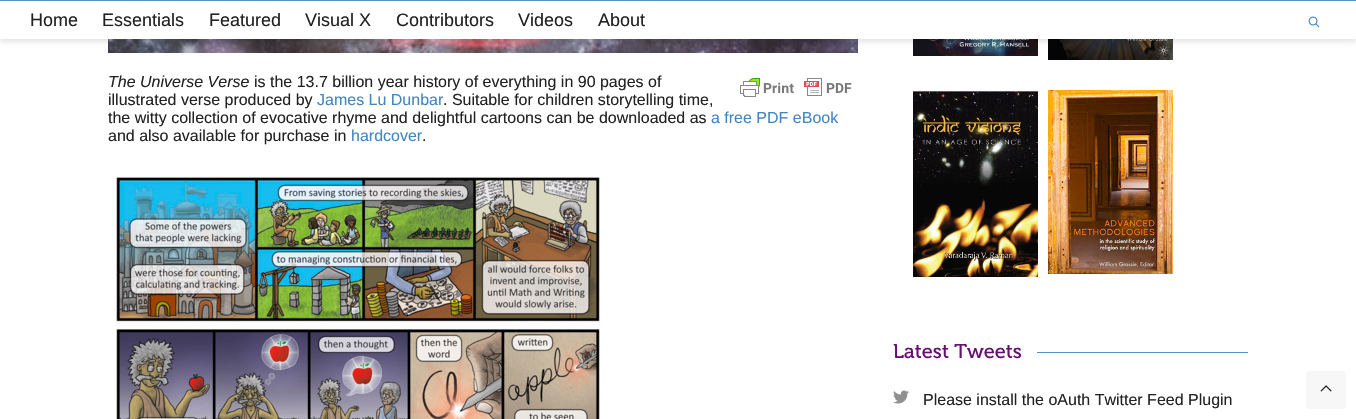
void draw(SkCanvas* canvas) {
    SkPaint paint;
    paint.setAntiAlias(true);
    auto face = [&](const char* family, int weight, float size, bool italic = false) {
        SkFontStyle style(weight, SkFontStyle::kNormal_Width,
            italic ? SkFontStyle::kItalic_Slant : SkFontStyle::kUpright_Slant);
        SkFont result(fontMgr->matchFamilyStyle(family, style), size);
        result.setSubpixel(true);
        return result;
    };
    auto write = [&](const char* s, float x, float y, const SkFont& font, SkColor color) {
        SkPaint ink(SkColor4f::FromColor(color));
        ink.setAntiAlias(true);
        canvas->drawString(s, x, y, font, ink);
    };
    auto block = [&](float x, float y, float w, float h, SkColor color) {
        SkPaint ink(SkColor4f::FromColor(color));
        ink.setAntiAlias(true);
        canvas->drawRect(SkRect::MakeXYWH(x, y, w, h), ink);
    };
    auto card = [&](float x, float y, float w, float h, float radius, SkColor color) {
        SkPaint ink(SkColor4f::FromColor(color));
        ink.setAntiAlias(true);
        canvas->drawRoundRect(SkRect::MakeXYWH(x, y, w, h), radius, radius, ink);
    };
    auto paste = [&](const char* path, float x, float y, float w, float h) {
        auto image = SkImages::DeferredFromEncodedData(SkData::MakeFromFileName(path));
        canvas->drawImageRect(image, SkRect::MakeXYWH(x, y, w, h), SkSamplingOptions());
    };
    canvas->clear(SK_ColorWHITE);
    paste("pic2.png", 108, 39, 750, 14);
    paste("pic5.png", 913, 39, 125, 17);
    paste("pic6.png", 1048, 39, 125, 21);
    paint.setColor(SkColorSetARGB(26, 0, 0, 0));
    paint.setMaskFilter(SkMaskFilter::MakeBlur(kNormal_SkBlurStyle, 2.5f));
    canvas->drawRect(SkRect::MakeXYWH(0, 3, 1356, 39), paint);
    paint.setMaskFilter(nullptr);
    block(0, 1, 1356, 38, SK_ColorWHITE);
    block(0, 0, 1356, 1, SkColorSetRGB(91, 144, 191));
    auto kFont1 = face("Liberation Sans", 400, 18);
    write("Home", 30, 26, kFont1, SkColorSetRGB(34, 34, 34));
    write("Essentials", 102, 26, kFont1, SkColorSetRGB(34, 34, 34));
    write("Featured", 209, 26, kFont1, SkColorSetRGB(34, 34, 34));
    write("Visual X", 305, 26, kFont1, SkColorSetRGB(34, 34, 34));
    write("Contributors", 396, 26, kFont1, SkColorSetRGB(34, 34, 34));
    write("Videos", 518, 26, kFont1, SkColorSetRGB(34, 34, 34));
    write("About", 598, 26, kFont1, SkColorSetRGB(34, 34, 34));
    paste("pic1.png", 1308, 16, 12, 12);
    auto kFont2 = face("Liberation Sans", 400, 16, true);
    write("The Universe Verse", 108, 87, kFont2, SkColorSetRGB(34, 34, 34));
    auto kFont3 = face("Liberation Sans", 400, 16);
    write("is the 13.7 billion year history of everything in 90 pages of", 254, 87, kFont3, SkColorSetRGB(34, 34, 34));
    write("illustrated verse produced by", 108, 105, kFont3, SkColorSetRGB(34, 34, 34));
    write("James Lu Dunbar", 317, 105, kFont3, SkColorSetRGB(66, 133, 191));
    write(". Suitable for children storytelling time,", 443, 105, kFont3, SkColorSetRGB(34, 34, 34));
    write("the witty collection of evocative rhyme and delightful cartoons can be downloaded as", 108, 123, kFont3, SkColorSetRGB(34, 34, 34));
    write("a free PDF eBook", 711, 123, kFont3, SkColorSetRGB(66, 133, 191));
    write("and also available for purchase in", 108, 141, kFont3, SkColorSetRGB(34, 34, 34));
    write("hardcover", 351, 141, kFont3, SkColorSetRGB(66, 133, 191));
    write(".", 422, 141, kFont3, SkColorSetRGB(34, 34, 34));
    paste("pic3.png", 740, 78, 112, 19);
    paste("pic4.png", 116, 176, 486, 243);
    paste("pic7.png", 913, 90, 125, 187);
    paste("pic8.png", 1048, 90, 125, 184);
    auto kFont4 = face("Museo", 400, 20);
    write("Latest Tweets", 893, 358, kFont4, SkColorSetRGB(103, 14, 114));
    block(1037, 352, 211, 1, SkColorSetRGB(91, 144, 191));
    paste("pic9.png", 893, 390, 16, 14);
    write("Please install the oAuth Twitter Feed Plugin", 923, 405, kFont3, SkColorSetRGB(34, 34, 34));
    card(1306, 371, 40, 38, 4, SkColorSetRGB(247, 247, 247));
    paste("pic10.png", 1320, 385, 12, 7);
}
